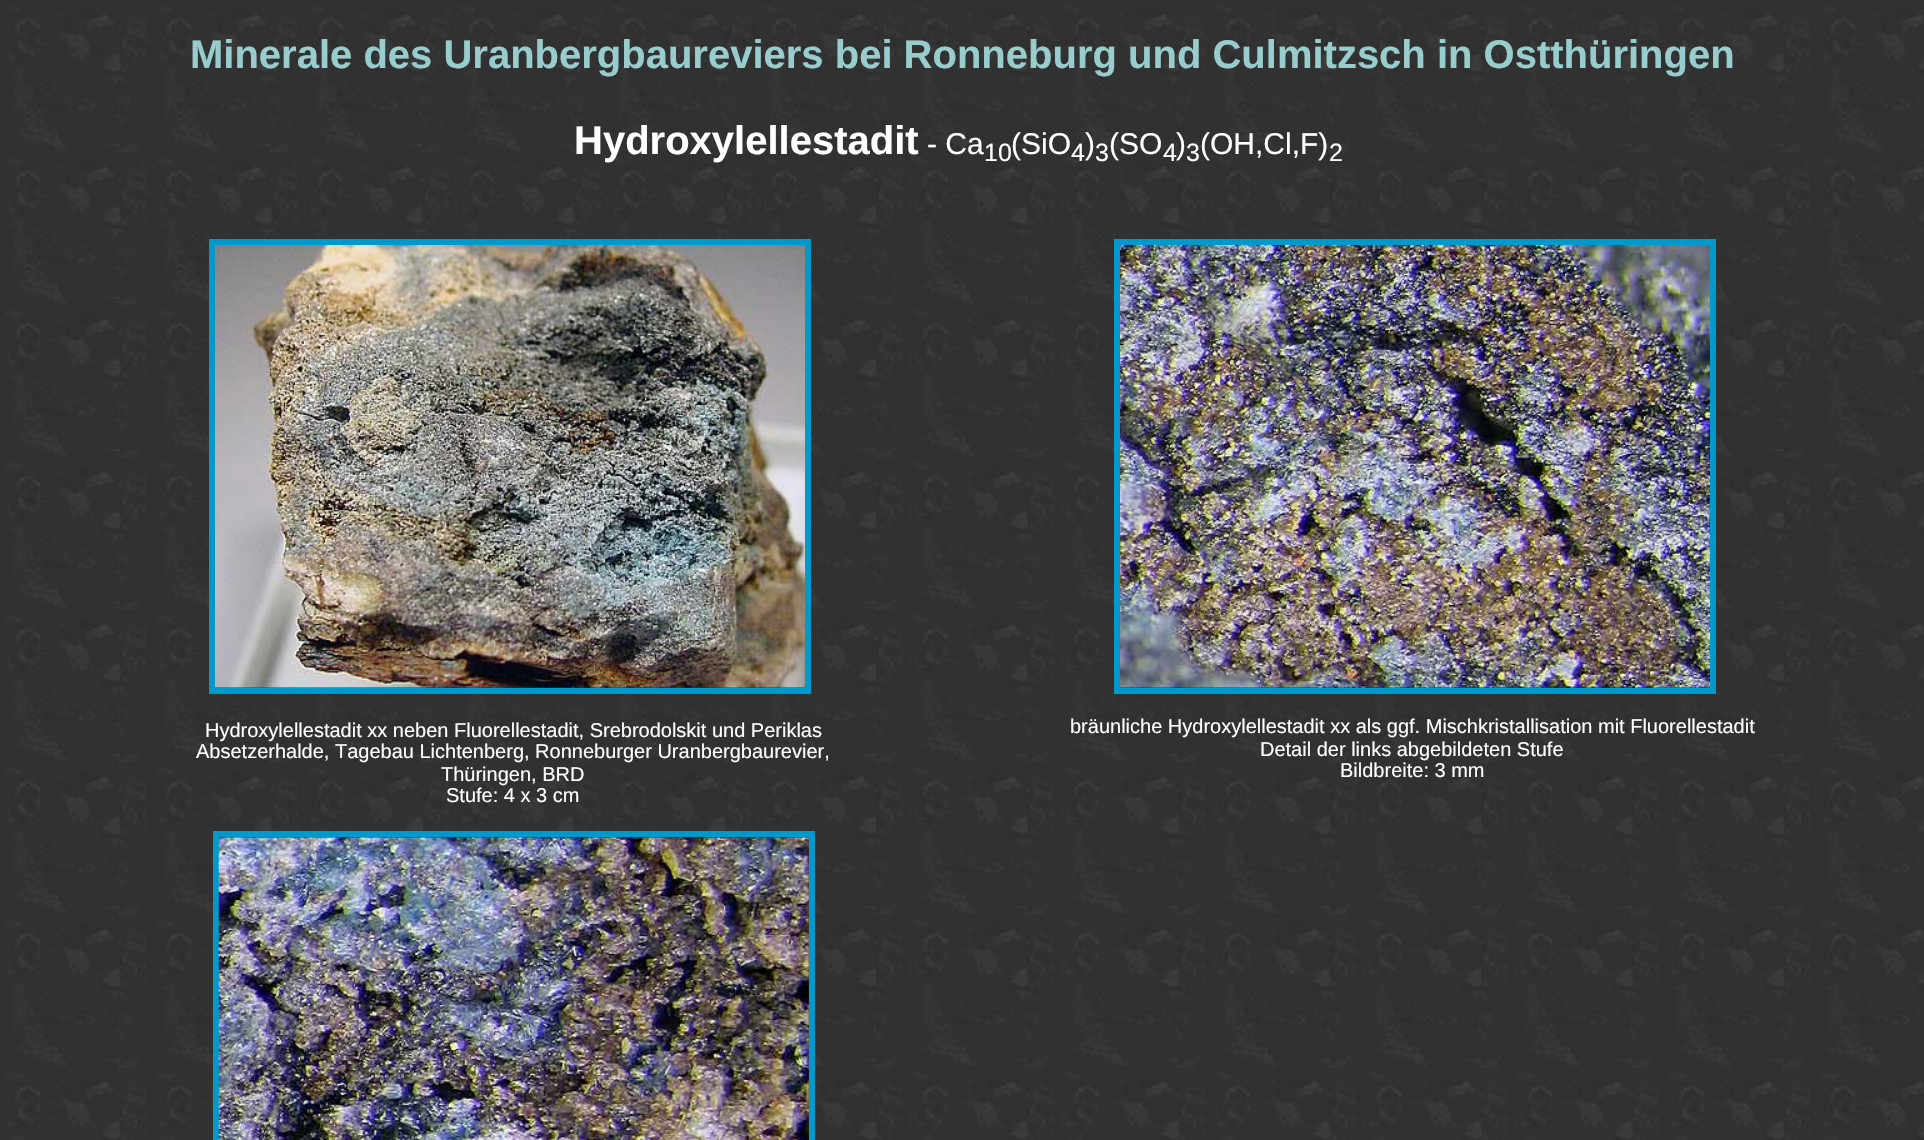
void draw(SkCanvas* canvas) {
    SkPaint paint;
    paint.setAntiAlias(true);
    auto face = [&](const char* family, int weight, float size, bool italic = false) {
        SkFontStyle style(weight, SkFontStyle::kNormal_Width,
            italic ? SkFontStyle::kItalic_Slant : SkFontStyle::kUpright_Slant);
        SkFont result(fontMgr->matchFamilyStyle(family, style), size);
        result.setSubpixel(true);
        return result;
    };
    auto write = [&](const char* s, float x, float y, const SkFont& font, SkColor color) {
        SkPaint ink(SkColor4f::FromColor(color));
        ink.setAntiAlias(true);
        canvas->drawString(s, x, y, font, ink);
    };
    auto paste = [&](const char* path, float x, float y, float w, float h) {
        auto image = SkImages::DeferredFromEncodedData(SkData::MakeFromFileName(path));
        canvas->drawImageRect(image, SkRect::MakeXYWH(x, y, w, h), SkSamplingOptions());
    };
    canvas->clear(SK_ColorWHITE);
    paste("pic1.png", 0, 0, 1924, 1140);
    auto kFont1 = face("Liberation Sans", 700, 40);
    write("Minerale des Uranbergbaureviers bei Ronneburg und Culmitzsch in Ostthüringen", 190, 68, kFont1, SkColorSetRGB(153, 204, 204));
    write("Hydroxylellestadit", 574, 154, kFont1, SK_ColorWHITE);
    auto kFont2 = face("Liberation Sans", 400, 30);
    write("- Ca", 927, 154, kFont2, SK_ColorWHITE);
    auto kFont3 = face("Liberation Sans", 400, 25);
    write("10", 984, 161, kFont3, SK_ColorWHITE);
    write("(SiO", 1011, 154, kFont2, SK_ColorWHITE);
    write("4", 1071, 161, kFont3, SK_ColorWHITE);
    write(")", 1085, 154, kFont2, SK_ColorWHITE);
    write("3", 1095, 161, kFont3, SK_ColorWHITE);
    write("(SO", 1109, 154, kFont2, SK_ColorWHITE);
    write("4", 1163, 161, kFont3, SK_ColorWHITE);
    write(")", 1176, 154, kFont2, SK_ColorWHITE);
    write("3", 1186, 161, kFont3, SK_ColorWHITE);
    write("(OH,Cl,F)", 1200, 154, kFont2, SK_ColorWHITE);
    write("2", 1329, 161, kFont3, SK_ColorWHITE);
    paint.setStyle(SkPaint::kStroke_Style);
    paint.setStrokeWidth(6);
    paint.setColor(SkColorSetRGB(0, 153, 204));
    canvas->drawRect(SkRect::MakeXYWH(212, 242, 596, 449), paint);
    paste("pic2.png", 215, 245, 590, 443);
    auto kFont4 = face("Liberation Sans", 400, 20);
    write("Hydroxylellestadit xx neben Fluorellestadit, Srebrodolskit und Periklas", 205, 737, kFont4, SK_ColorWHITE);
    write("Absetzerhalde, Tagebau Lichtenberg, Ronneburger Uranbergbaurevier,", 196, 758, kFont4, SK_ColorWHITE);
    write("Thüringen, BRD", 441, 781, kFont4, SK_ColorWHITE);
    write("Stufe: 4 x 3 cm", 446, 802, kFont4, SK_ColorWHITE);
    canvas->drawRect(SkRect::MakeXYWH(1117, 242, 596, 449), paint);
    paste("pic3.png", 1120, 245, 590, 443);
    write("bräunliche Hydroxylellestadit xx als ggf. Mischkristallisation mit Fluorellestadit", 1070, 733, kFont4, SK_ColorWHITE);
    write("Detail der links abgebildeten Stufe", 1260, 756, kFont4, SK_ColorWHITE);
    write("Bildbreite: 3 mm", 1340, 777, kFont4, SK_ColorWHITE);
    canvas->drawRect(SkRect::MakeXYWH(216, 834, 596, 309), paint);
    paste("pic4.png", 218, 837, 591, 303);
}
